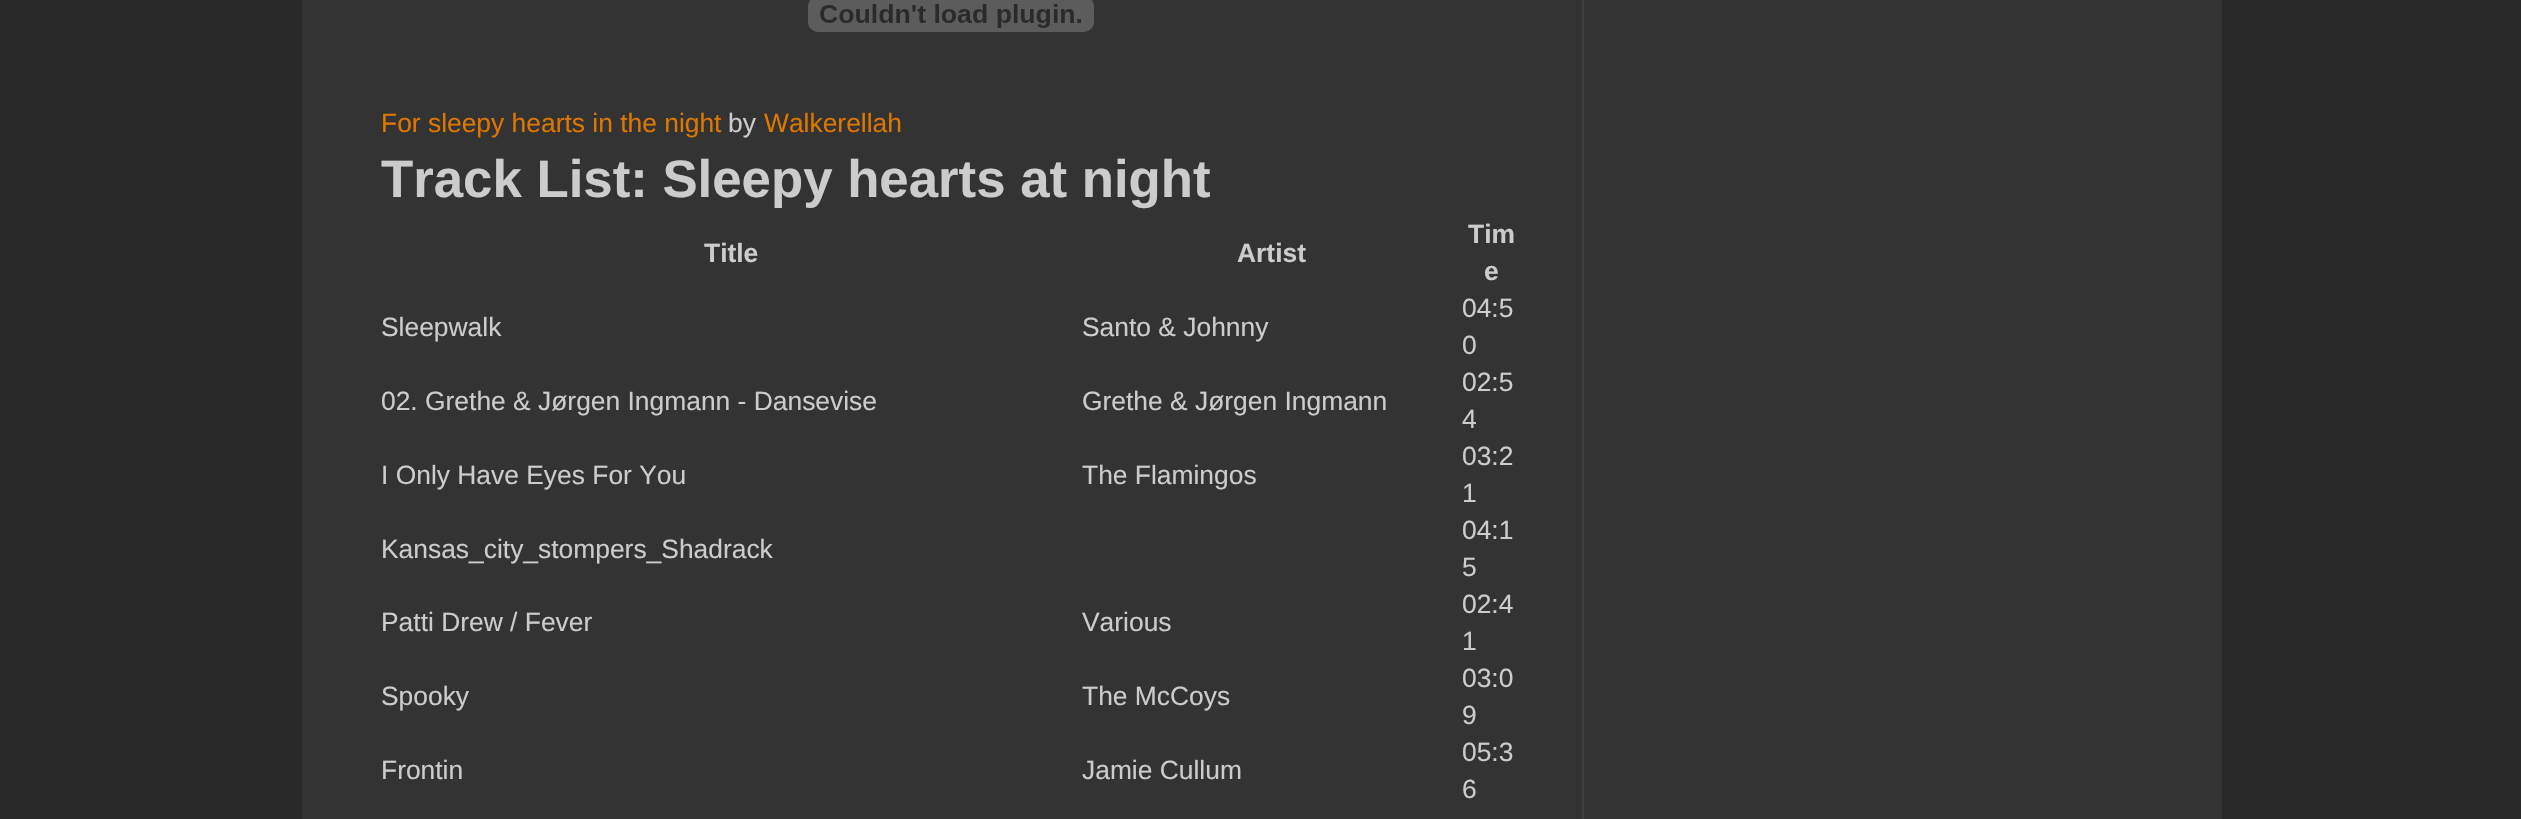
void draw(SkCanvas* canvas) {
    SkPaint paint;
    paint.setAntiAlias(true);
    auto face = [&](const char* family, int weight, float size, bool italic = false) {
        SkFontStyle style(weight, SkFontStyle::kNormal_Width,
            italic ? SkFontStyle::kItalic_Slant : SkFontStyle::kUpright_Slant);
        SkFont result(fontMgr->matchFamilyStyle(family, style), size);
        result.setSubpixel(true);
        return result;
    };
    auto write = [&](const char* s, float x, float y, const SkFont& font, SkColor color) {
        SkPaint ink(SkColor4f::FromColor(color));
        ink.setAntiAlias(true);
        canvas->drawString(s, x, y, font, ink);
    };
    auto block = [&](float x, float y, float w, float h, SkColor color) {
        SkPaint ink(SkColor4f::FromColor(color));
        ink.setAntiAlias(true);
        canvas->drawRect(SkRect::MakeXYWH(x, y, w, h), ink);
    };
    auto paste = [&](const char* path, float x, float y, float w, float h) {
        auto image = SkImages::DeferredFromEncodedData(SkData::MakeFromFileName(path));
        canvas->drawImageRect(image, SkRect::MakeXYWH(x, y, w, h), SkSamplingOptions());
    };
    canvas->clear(SkColorSetRGB(41, 41, 41));
    block(302, 0, 1920, 819, SkColorSetRGB(51, 51, 51));
    paste("pic1.png", 808, 0, 286, 32);
    auto kFont1 = face("Liberation Sans", 400, 26.4f);
    write("For sleepy hearts in the night", 381, 132, kFont1, SkColorSetRGB(221, 119, 0));
    write("by", 728, 132, kFont1, SkColorSetRGB(204, 204, 204));
    write("Walkerellah", 764, 132, kFont1, SkColorSetRGB(221, 119, 0));
    auto kFont2 = face("Liberation Sans", 700, 52.75f);
    write("Track List: Sleepy hearts at night", 381, 197, kFont2, SkColorSetRGB(204, 204, 204));
    auto kFont3 = face("Liberation Sans", 700, 26.4f);
    write("Title", 704, 262, kFont3, SkColorSetRGB(204, 204, 204));
    write("Artist", 1237, 262, kFont3, SkColorSetRGB(204, 204, 204));
    write("Tim", 1468, 243, kFont3, SkColorSetRGB(204, 204, 204));
    write("e", 1484, 280, kFont3, SkColorSetRGB(204, 204, 204));
    write("Sleepwalk", 381, 336, kFont1, SkColorSetRGB(204, 204, 204));
    write("Santo & Johnny", 1082, 336, kFont1, SkColorSetRGB(204, 204, 204));
    write("04:5", 1462, 317, kFont1, SkColorSetRGB(204, 204, 204));
    write("0", 1462, 354, kFont1, SkColorSetRGB(204, 204, 204));
    write("02. Grethe & Jørgen Ingmann - Dansevise", 381, 410, kFont1, SkColorSetRGB(204, 204, 204));
    write("Grethe & Jørgen Ingmann", 1082, 410, kFont1, SkColorSetRGB(204, 204, 204));
    write("02:5", 1462, 391, kFont1, SkColorSetRGB(204, 204, 204));
    write("4", 1462, 428, kFont1, SkColorSetRGB(204, 204, 204));
    write("I Only Have Eyes For You", 381, 484, kFont1, SkColorSetRGB(204, 204, 204));
    write("The Flamingos", 1082, 484, kFont1, SkColorSetRGB(204, 204, 204));
    write("03:2", 1462, 465, kFont1, SkColorSetRGB(204, 204, 204));
    write("1", 1462, 502, kFont1, SkColorSetRGB(204, 204, 204));
    write("Kansas_city_stompers_Shadrack", 381, 558, kFont1, SkColorSetRGB(204, 204, 204));
    write("04:1", 1462, 539, kFont1, SkColorSetRGB(204, 204, 204));
    write("5", 1462, 576, kFont1, SkColorSetRGB(204, 204, 204));
    write("Patti Drew / Fever", 381, 631, kFont1, SkColorSetRGB(204, 204, 204));
    write("Various", 1082, 631, kFont1, SkColorSetRGB(204, 204, 204));
    write("02:4", 1462, 613, kFont1, SkColorSetRGB(204, 204, 204));
    write("1", 1462, 650, kFont1, SkColorSetRGB(204, 204, 204));
    write("Spooky", 381, 705, kFont1, SkColorSetRGB(204, 204, 204));
    write("The McCoys", 1082, 705, kFont1, SkColorSetRGB(204, 204, 204));
    write("03:0", 1462, 687, kFont1, SkColorSetRGB(204, 204, 204));
    write("9", 1462, 724, kFont1, SkColorSetRGB(204, 204, 204));
    write("Frontin", 381, 779, kFont1, SkColorSetRGB(204, 204, 204));
    write("Jamie Cullum", 1082, 779, kFont1, SkColorSetRGB(204, 204, 204));
    write("05:3", 1462, 761, kFont1, SkColorSetRGB(204, 204, 204));
    write("6", 1462, 798, kFont1, SkColorSetRGB(204, 204, 204));
    block(1582, 0, 2, 819, SkColorSetRGB(64, 64, 64));
}
